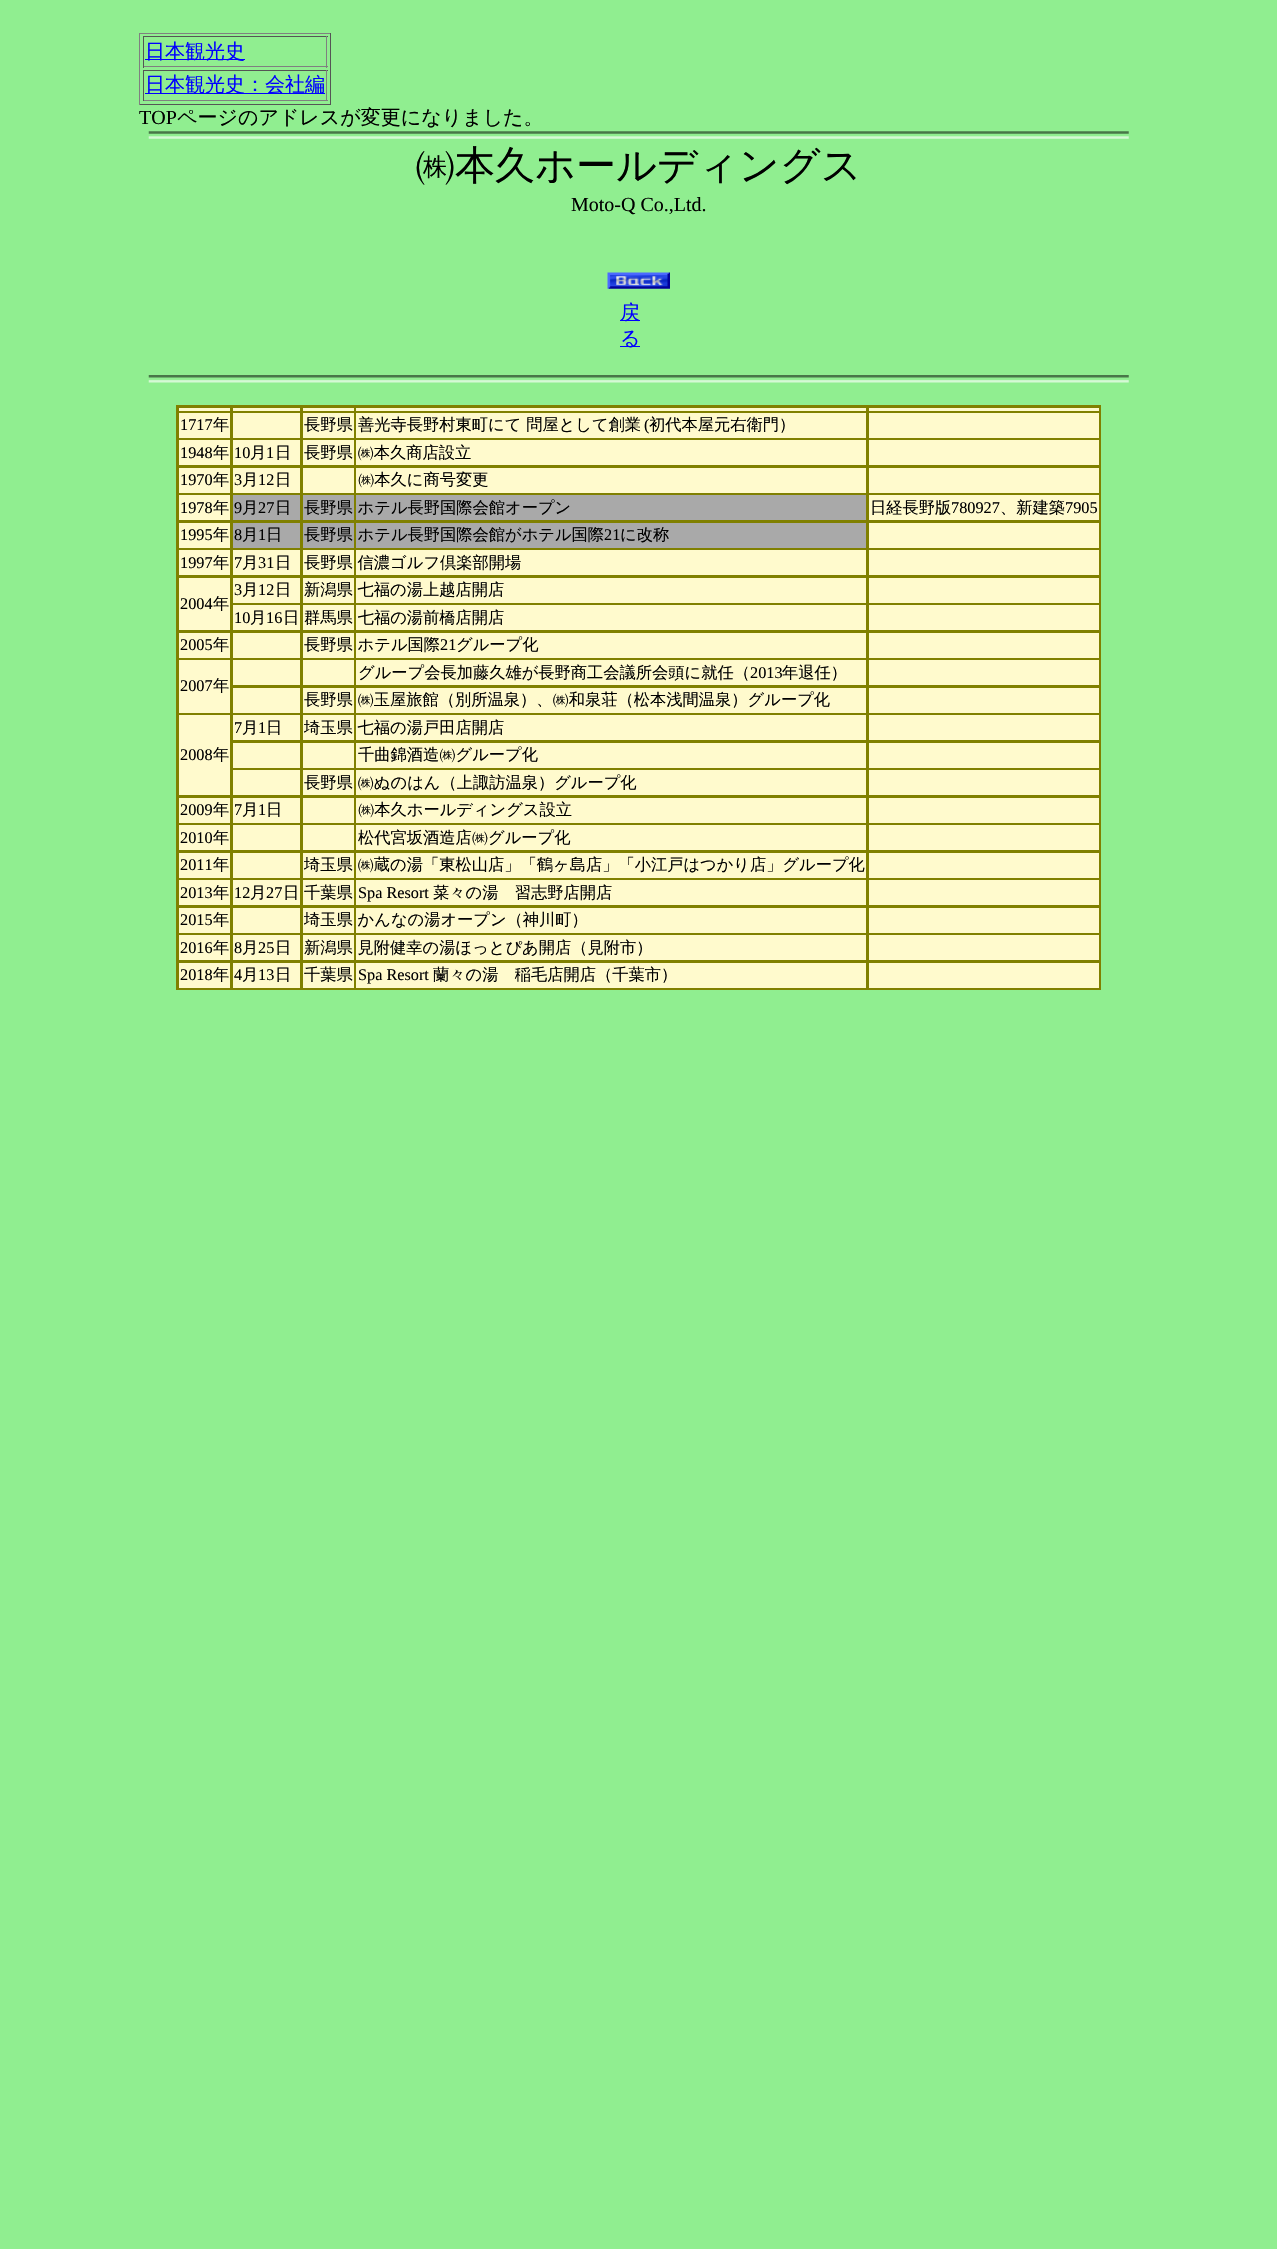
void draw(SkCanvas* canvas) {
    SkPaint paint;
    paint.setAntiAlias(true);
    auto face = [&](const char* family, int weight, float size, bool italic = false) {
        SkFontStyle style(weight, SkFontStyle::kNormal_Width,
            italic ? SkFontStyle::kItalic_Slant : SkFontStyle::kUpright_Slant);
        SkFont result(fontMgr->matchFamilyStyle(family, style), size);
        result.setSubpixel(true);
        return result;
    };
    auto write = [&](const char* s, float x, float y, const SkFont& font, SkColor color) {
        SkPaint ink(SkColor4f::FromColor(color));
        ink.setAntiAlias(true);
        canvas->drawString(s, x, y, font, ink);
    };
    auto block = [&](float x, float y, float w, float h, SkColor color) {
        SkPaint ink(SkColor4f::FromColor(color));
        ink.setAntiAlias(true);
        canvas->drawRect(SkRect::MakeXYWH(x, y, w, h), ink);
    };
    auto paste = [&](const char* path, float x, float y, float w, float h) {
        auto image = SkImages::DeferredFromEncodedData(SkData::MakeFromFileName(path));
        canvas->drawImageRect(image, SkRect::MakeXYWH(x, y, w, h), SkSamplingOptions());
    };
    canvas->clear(SkColorSetRGB(144, 238, 144));
    block(139, 33, 192, 1, SkColorSetRGB(128, 128, 128));
    block(330, 33, 1, 72, SkColorSetRGB(85, 85, 85));
    block(139, 104, 192, 1, SkColorSetRGB(85, 85, 85));
    block(139, 33, 1, 72, SkColorSetRGB(128, 128, 128));
    block(143, 36, 185, 1, SkColorSetRGB(85, 85, 85));
    block(326, 36, 1, 32, SkColorSetRGB(128, 128, 128));
    block(143, 66, 185, 1, SkColorSetRGB(128, 128, 128));
    block(143, 36, 1, 32, SkColorSetRGB(85, 85, 85));
    block(145, 59, 100, 1, SkColorSetRGB(0, 0, 255));
    auto kFont1 = face("WenQuanYi Zen Hei", 500, 20);
    write("日本観光史", 145, 58, kFont1, SkColorSetRGB(0, 0, 255));
    block(143, 70, 185, 1, SkColorSetRGB(85, 85, 85));
    block(326, 70, 1, 31, SkColorSetRGB(128, 128, 128));
    block(143, 100, 185, 1, SkColorSetRGB(128, 128, 128));
    block(143, 70, 1, 31, SkColorSetRGB(85, 85, 85));
    block(145, 93, 180, 1, SkColorSetRGB(0, 0, 255));
    write("日本観光史：会社編", 145, 91, kFont1, SkColorSetRGB(0, 0, 255));
    auto kFont2 = face("Liberation Serif", 400, 20);
    write("TOP", 139, 124, kFont2, SK_ColorBLACK);
    write("ページのアドレスが変更になりました。", 177, 124, kFont1, SK_ColorBLACK);
    paste("pic1.png", 148, 131, 981, 8);
    auto kFont3 = face("WenQuanYi Zen Hei", 500, 40);
    write("㈱本久ホールディングス", 415, 179, kFont3, SK_ColorBLACK);
    write("Moto-Q Co.,Ltd.", 571, 211, kFont2, SK_ColorBLACK);
    paste("pic2.png", 607, 272, 63, 17);
    block(620, 320, 20, 1, SkColorSetRGB(0, 0, 255));
    write("戻", 620, 319, kFont1, SkColorSetRGB(0, 0, 255));
    block(620, 346, 20, 1, SkColorSetRGB(0, 0, 255));
    write("る", 620, 345, kFont1, SkColorSetRGB(0, 0, 255));
    paste("pic3.png", 148, 375, 981, 8);
    block(176, 405, 925, 585, SkColorSetRGB(128, 128, 0));
    block(179, 408, 51, 3, SkColorSetRGB(255, 250, 205));
    block(233, 408, 67, 3, SkColorSetRGB(255, 250, 205));
    block(303, 408, 51, 3, SkColorSetRGB(255, 250, 205));
    block(356, 408, 510, 3, SkColorSetRGB(255, 250, 205));
    block(869, 408, 230, 3, SkColorSetRGB(255, 250, 205));
    block(179, 413, 51, 25, SkColorSetRGB(255, 250, 205));
    auto kFont4 = face("Liberation Serif", 400, 16.25f);
    write("1717", 180, 430, kFont4, SK_ColorBLACK);
    auto kFont5 = face("WenQuanYi Zen Hei", 500, 16.25f);
    write("年", 213, 430, kFont5, SK_ColorBLACK);
    block(233, 413, 67, 25, SkColorSetRGB(255, 250, 205));
    block(303, 413, 51, 25, SkColorSetRGB(255, 250, 205));
    write("長野県", 304, 430, kFont5, SK_ColorBLACK);
    block(356, 413, 510, 25, SkColorSetRGB(255, 250, 205));
    write("善光寺長野村東町にて 問屋として創業", 358, 430, kFont5, SK_ColorBLACK);
    write("(", 644, 430, kFont4, SK_ColorBLACK);
    write("初代本屋元右衛門）", 649, 430, kFont5, SK_ColorBLACK);
    block(869, 413, 230, 25, SkColorSetRGB(255, 250, 205));
    block(179, 440, 51, 25, SkColorSetRGB(255, 250, 205));
    write("1948", 180, 458, kFont4, SK_ColorBLACK);
    write("年", 213, 458, kFont5, SK_ColorBLACK);
    block(356, 440, 510, 25, SkColorSetRGB(255, 250, 205));
    block(869, 440, 230, 25, SkColorSetRGB(255, 250, 205));
    block(233, 440, 67, 25, SkColorSetRGB(255, 250, 205));
    write("10", 234, 458, kFont4, SK_ColorBLACK);
    write("月", 250, 458, kFont5, SK_ColorBLACK);
    write("1", 266, 458, kFont4, SK_ColorBLACK);
    write("日", 275, 458, kFont5, SK_ColorBLACK);
    block(303, 440, 51, 25, SkColorSetRGB(255, 250, 205));
    write("長野県 ㈱本久商店設立", 304, 458, kFont5, SK_ColorBLACK);
    block(179, 468, 51, 25, SkColorSetRGB(255, 250, 205));
    write("1970", 180, 485, kFont4, SK_ColorBLACK);
    write("年", 213, 485, kFont5, SK_ColorBLACK);
    block(233, 468, 67, 25, SkColorSetRGB(255, 250, 205));
    write("3", 234, 485, kFont4, SK_ColorBLACK);
    write("月", 242, 485, kFont5, SK_ColorBLACK);
    write("12", 258, 485, kFont4, SK_ColorBLACK);
    write("日", 275, 485, kFont5, SK_ColorBLACK);
    block(303, 468, 51, 25, SkColorSetRGB(255, 250, 205));
    block(356, 468, 510, 25, SkColorSetRGB(255, 250, 205));
    write("㈱本久に商号変更", 358, 485, kFont5, SK_ColorBLACK);
    block(869, 468, 230, 25, SkColorSetRGB(255, 250, 205));
    block(179, 495, 51, 25, SkColorSetRGB(255, 250, 205));
    write("1978", 180, 513, kFont4, SK_ColorBLACK);
    write("年", 213, 513, kFont5, SK_ColorBLACK);
    block(356, 495, 510, 25, SkColorSetRGB(169, 169, 169));
    block(233, 495, 67, 25, SkColorSetRGB(169, 169, 169));
    write("9", 234, 513, kFont4, SK_ColorBLACK);
    write("月", 242, 513, kFont5, SK_ColorBLACK);
    write("27", 258, 513, kFont4, SK_ColorBLACK);
    write("日", 275, 513, kFont5, SK_ColorBLACK);
    block(303, 495, 51, 25, SkColorSetRGB(169, 169, 169));
    write("長野県 ホテル長野国際会館オープン", 304, 513, kFont5, SK_ColorBLACK);
    block(869, 495, 230, 25, SkColorSetRGB(255, 250, 205));
    write("日経長野版", 870, 513, kFont5, SK_ColorBLACK);
    write("780927", 951, 513, kFont4, SK_ColorBLACK);
    write("、新建築", 1000, 513, kFont5, SK_ColorBLACK);
    write("7905", 1065, 513, kFont4, SK_ColorBLACK);
    block(179, 523, 51, 25, SkColorSetRGB(255, 250, 205));
    write("1995", 180, 540, kFont4, SK_ColorBLACK);
    write("年", 213, 540, kFont5, SK_ColorBLACK);
    block(233, 523, 67, 25, SkColorSetRGB(169, 169, 169));
    write("8", 234, 540, kFont4, SK_ColorBLACK);
    write("月", 242, 540, kFont5, SK_ColorBLACK);
    write("1", 258, 540, kFont4, SK_ColorBLACK);
    write("日", 266, 540, kFont5, SK_ColorBLACK);
    block(303, 523, 51, 25, SkColorSetRGB(169, 169, 169));
    block(356, 523, 510, 25, SkColorSetRGB(169, 169, 169));
    write("長野県 ホテル長野国際会館がホテル国際", 304, 540, kFont5, SK_ColorBLACK);
    write("21", 604, 540, kFont4, SK_ColorBLACK);
    write("に改称", 620, 540, kFont5, SK_ColorBLACK);
    block(869, 523, 230, 25, SkColorSetRGB(255, 250, 205));
    block(179, 550, 51, 25, SkColorSetRGB(255, 250, 205));
    write("1997", 180, 568, kFont4, SK_ColorBLACK);
    write("年", 213, 568, kFont5, SK_ColorBLACK);
    block(356, 550, 510, 25, SkColorSetRGB(255, 250, 205));
    block(869, 550, 230, 25, SkColorSetRGB(255, 250, 205));
    block(233, 550, 67, 25, SkColorSetRGB(255, 250, 205));
    write("7", 234, 568, kFont4, SK_ColorBLACK);
    write("月", 242, 568, kFont5, SK_ColorBLACK);
    write("31", 258, 568, kFont4, SK_ColorBLACK);
    write("日", 275, 568, kFont5, SK_ColorBLACK);
    block(303, 550, 51, 25, SkColorSetRGB(255, 250, 205));
    write("長野県 信濃ゴルフ倶楽部開場", 304, 568, kFont5, SK_ColorBLACK);
    block(356, 578, 510, 25, SkColorSetRGB(255, 250, 205));
    block(869, 578, 230, 25, SkColorSetRGB(255, 250, 205));
    block(233, 578, 67, 25, SkColorSetRGB(255, 250, 205));
    write("3", 234, 595, kFont4, SK_ColorBLACK);
    write("月", 242, 595, kFont5, SK_ColorBLACK);
    write("12", 258, 595, kFont4, SK_ColorBLACK);
    write("日", 275, 595, kFont5, SK_ColorBLACK);
    block(303, 578, 51, 25, SkColorSetRGB(255, 250, 205));
    write("新潟県 七福の湯上越店開店", 304, 595, kFont5, SK_ColorBLACK);
    block(179, 578, 51, 52, SkColorSetRGB(255, 250, 205));
    write("2004", 180, 609, kFont4, SK_ColorBLACK);
    write("年", 213, 609, kFont5, SK_ColorBLACK);
    block(303, 605, 51, 25, SkColorSetRGB(255, 250, 205));
    block(356, 605, 510, 25, SkColorSetRGB(255, 250, 205));
    block(869, 605, 230, 25, SkColorSetRGB(255, 250, 205));
    block(233, 605, 67, 25, SkColorSetRGB(255, 250, 205));
    write("10", 234, 623, kFont4, SK_ColorBLACK);
    write("月", 250, 623, kFont5, SK_ColorBLACK);
    write("16", 266, 623, kFont4, SK_ColorBLACK);
    write("日 群馬県 七福の湯前橋店開店", 283, 623, kFont5, SK_ColorBLACK);
    block(179, 633, 51, 25, SkColorSetRGB(255, 250, 205));
    write("2005", 180, 650, kFont4, SK_ColorBLACK);
    write("年", 213, 650, kFont5, SK_ColorBLACK);
    block(233, 633, 67, 25, SkColorSetRGB(255, 250, 205));
    block(303, 633, 51, 25, SkColorSetRGB(255, 250, 205));
    block(356, 633, 510, 25, SkColorSetRGB(255, 250, 205));
    write("長野県 ホテル国際", 304, 650, kFont5, SK_ColorBLACK);
    write("21", 440, 650, kFont4, SK_ColorBLACK);
    write("グループ化", 456, 650, kFont5, SK_ColorBLACK);
    block(869, 633, 230, 25, SkColorSetRGB(255, 250, 205));
    block(233, 660, 67, 25, SkColorSetRGB(255, 250, 205));
    block(303, 660, 51, 25, SkColorSetRGB(255, 250, 205));
    block(356, 660, 510, 25, SkColorSetRGB(255, 250, 205));
    write("グループ会長加藤久雄が長野商工会議所会頭に就任（", 358, 678, kFont5, SK_ColorBLACK);
    write("2013", 750, 678, kFont4, SK_ColorBLACK);
    write("年退任）", 782, 678, kFont5, SK_ColorBLACK);
    block(869, 660, 230, 25, SkColorSetRGB(255, 250, 205));
    block(179, 660, 51, 53, SkColorSetRGB(255, 250, 205));
    write("2007", 180, 691, kFont4, SK_ColorBLACK);
    write("年", 213, 691, kFont5, SK_ColorBLACK);
    block(233, 688, 67, 25, SkColorSetRGB(255, 250, 205));
    block(356, 688, 510, 25, SkColorSetRGB(255, 250, 205));
    block(869, 688, 230, 25, SkColorSetRGB(255, 250, 205));
    block(303, 688, 51, 25, SkColorSetRGB(255, 250, 205));
    write("長野県 ㈱玉屋旅館（別所温泉）、㈱和泉荘（松本浅間温泉）グループ化", 304, 705, kFont5, SK_ColorBLACK);
    block(356, 715, 510, 25, SkColorSetRGB(255, 250, 205));
    block(869, 715, 230, 25, SkColorSetRGB(255, 250, 205));
    block(233, 715, 67, 25, SkColorSetRGB(255, 250, 205));
    write("7", 234, 733, kFont4, SK_ColorBLACK);
    write("月", 242, 733, kFont5, SK_ColorBLACK);
    write("1", 258, 733, kFont4, SK_ColorBLACK);
    write("日", 266, 733, kFont5, SK_ColorBLACK);
    block(303, 715, 51, 25, SkColorSetRGB(255, 250, 205));
    write("埼玉県 七福の湯戸田店開店", 304, 733, kFont5, SK_ColorBLACK);
    block(179, 715, 51, 80, SkColorSetRGB(255, 250, 205));
    write("2008", 180, 760, kFont4, SK_ColorBLACK);
    write("年", 213, 760, kFont5, SK_ColorBLACK);
    block(233, 743, 67, 25, SkColorSetRGB(255, 250, 205));
    block(303, 743, 51, 25, SkColorSetRGB(255, 250, 205));
    block(356, 743, 510, 25, SkColorSetRGB(255, 250, 205));
    write("千曲錦酒造㈱グループ化", 358, 760, kFont5, SK_ColorBLACK);
    block(869, 743, 230, 25, SkColorSetRGB(255, 250, 205));
    block(233, 770, 67, 25, SkColorSetRGB(255, 250, 205));
    block(356, 770, 510, 25, SkColorSetRGB(255, 250, 205));
    block(869, 770, 230, 25, SkColorSetRGB(255, 250, 205));
    block(303, 770, 51, 25, SkColorSetRGB(255, 250, 205));
    write("長野県 ㈱ぬのはん（上諏訪温泉）グループ化", 304, 788, kFont5, SK_ColorBLACK);
    block(179, 798, 51, 25, SkColorSetRGB(255, 250, 205));
    write("2009", 180, 815, kFont4, SK_ColorBLACK);
    write("年", 213, 815, kFont5, SK_ColorBLACK);
    block(233, 798, 67, 25, SkColorSetRGB(255, 250, 205));
    write("7", 234, 815, kFont4, SK_ColorBLACK);
    write("月", 242, 815, kFont5, SK_ColorBLACK);
    write("1", 258, 815, kFont4, SK_ColorBLACK);
    write("日", 266, 815, kFont5, SK_ColorBLACK);
    block(303, 798, 51, 25, SkColorSetRGB(255, 250, 205));
    block(356, 798, 510, 25, SkColorSetRGB(255, 250, 205));
    write("㈱本久ホールディングス設立", 358, 815, kFont5, SK_ColorBLACK);
    block(869, 798, 230, 25, SkColorSetRGB(255, 250, 205));
    block(179, 825, 51, 25, SkColorSetRGB(255, 250, 205));
    write("2010", 180, 843, kFont4, SK_ColorBLACK);
    write("年", 213, 843, kFont5, SK_ColorBLACK);
    block(233, 825, 67, 25, SkColorSetRGB(255, 250, 205));
    block(303, 825, 51, 25, SkColorSetRGB(255, 250, 205));
    block(356, 825, 510, 25, SkColorSetRGB(255, 250, 205));
    write("松代宮坂酒造店㈱グループ化", 358, 843, kFont5, SK_ColorBLACK);
    block(869, 825, 230, 25, SkColorSetRGB(255, 250, 205));
    block(179, 853, 51, 25, SkColorSetRGB(255, 250, 205));
    write("2011", 180, 870, kFont4, SK_ColorBLACK);
    write("年", 213, 870, kFont5, SK_ColorBLACK);
    block(233, 853, 67, 25, SkColorSetRGB(255, 250, 205));
    block(356, 853, 510, 25, SkColorSetRGB(255, 250, 205));
    block(869, 853, 230, 25, SkColorSetRGB(255, 250, 205));
    block(303, 853, 51, 25, SkColorSetRGB(255, 250, 205));
    write("埼玉県 ㈱蔵の湯「東松山店」「鶴ヶ島店」「小江戸はつかり店」グループ化", 304, 870, kFont5, SK_ColorBLACK);
    block(179, 880, 51, 25, SkColorSetRGB(255, 250, 205));
    write("2013", 180, 898, kFont4, SK_ColorBLACK);
    write("年", 213, 898, kFont5, SK_ColorBLACK);
    block(303, 880, 51, 25, SkColorSetRGB(255, 250, 205));
    block(869, 880, 230, 25, SkColorSetRGB(255, 250, 205));
    block(233, 880, 67, 25, SkColorSetRGB(255, 250, 205));
    write("12", 234, 898, kFont4, SK_ColorBLACK);
    write("月", 250, 898, kFont5, SK_ColorBLACK);
    write("27", 266, 898, kFont4, SK_ColorBLACK);
    write("日 千葉県", 283, 898, kFont5, SK_ColorBLACK);
    block(356, 880, 510, 25, SkColorSetRGB(255, 250, 205));
    write("Spa Resort", 358, 898, kFont4, SK_ColorBLACK);
    write("菜々の湯　習志野店開店", 433, 898, kFont5, SK_ColorBLACK);
    block(179, 908, 51, 25, SkColorSetRGB(255, 250, 205));
    write("2015", 180, 925, kFont4, SK_ColorBLACK);
    write("年", 213, 925, kFont5, SK_ColorBLACK);
    block(233, 908, 67, 25, SkColorSetRGB(255, 250, 205));
    block(356, 908, 510, 25, SkColorSetRGB(255, 250, 205));
    block(869, 908, 230, 25, SkColorSetRGB(255, 250, 205));
    block(303, 908, 51, 25, SkColorSetRGB(255, 250, 205));
    write("埼玉県 かんなの湯オープン（神川町）", 304, 925, kFont5, SK_ColorBLACK);
    block(179, 935, 51, 25, SkColorSetRGB(255, 250, 205));
    write("2016", 180, 953, kFont4, SK_ColorBLACK);
    write("年", 213, 953, kFont5, SK_ColorBLACK);
    block(356, 935, 510, 25, SkColorSetRGB(255, 250, 205));
    block(869, 935, 230, 25, SkColorSetRGB(255, 250, 205));
    block(233, 935, 67, 25, SkColorSetRGB(255, 250, 205));
    write("8", 234, 953, kFont4, SK_ColorBLACK);
    write("月", 242, 953, kFont5, SK_ColorBLACK);
    write("25", 258, 953, kFont4, SK_ColorBLACK);
    write("日", 275, 953, kFont5, SK_ColorBLACK);
    block(303, 935, 51, 25, SkColorSetRGB(255, 250, 205));
    write("新潟県 見附健幸の湯ほっとぴあ開店（見附市）", 304, 953, kFont5, SK_ColorBLACK);
    block(179, 963, 51, 25, SkColorSetRGB(255, 250, 205));
    write("2018", 180, 980, kFont4, SK_ColorBLACK);
    write("年", 213, 980, kFont5, SK_ColorBLACK);
    block(233, 963, 67, 25, SkColorSetRGB(255, 250, 205));
    write("4", 234, 980, kFont4, SK_ColorBLACK);
    write("月", 242, 980, kFont5, SK_ColorBLACK);
    write("13", 258, 980, kFont4, SK_ColorBLACK);
    write("日", 275, 980, kFont5, SK_ColorBLACK);
    block(303, 963, 51, 25, SkColorSetRGB(255, 250, 205));
    write("千葉県", 304, 980, kFont5, SK_ColorBLACK);
    block(356, 963, 510, 25, SkColorSetRGB(255, 250, 205));
    write("Spa Resort", 358, 980, kFont4, SK_ColorBLACK);
    write("蘭々の湯　稲毛店開店（千葉市）", 433, 980, kFont5, SK_ColorBLACK);
    block(869, 963, 230, 25, SkColorSetRGB(255, 250, 205));
}
